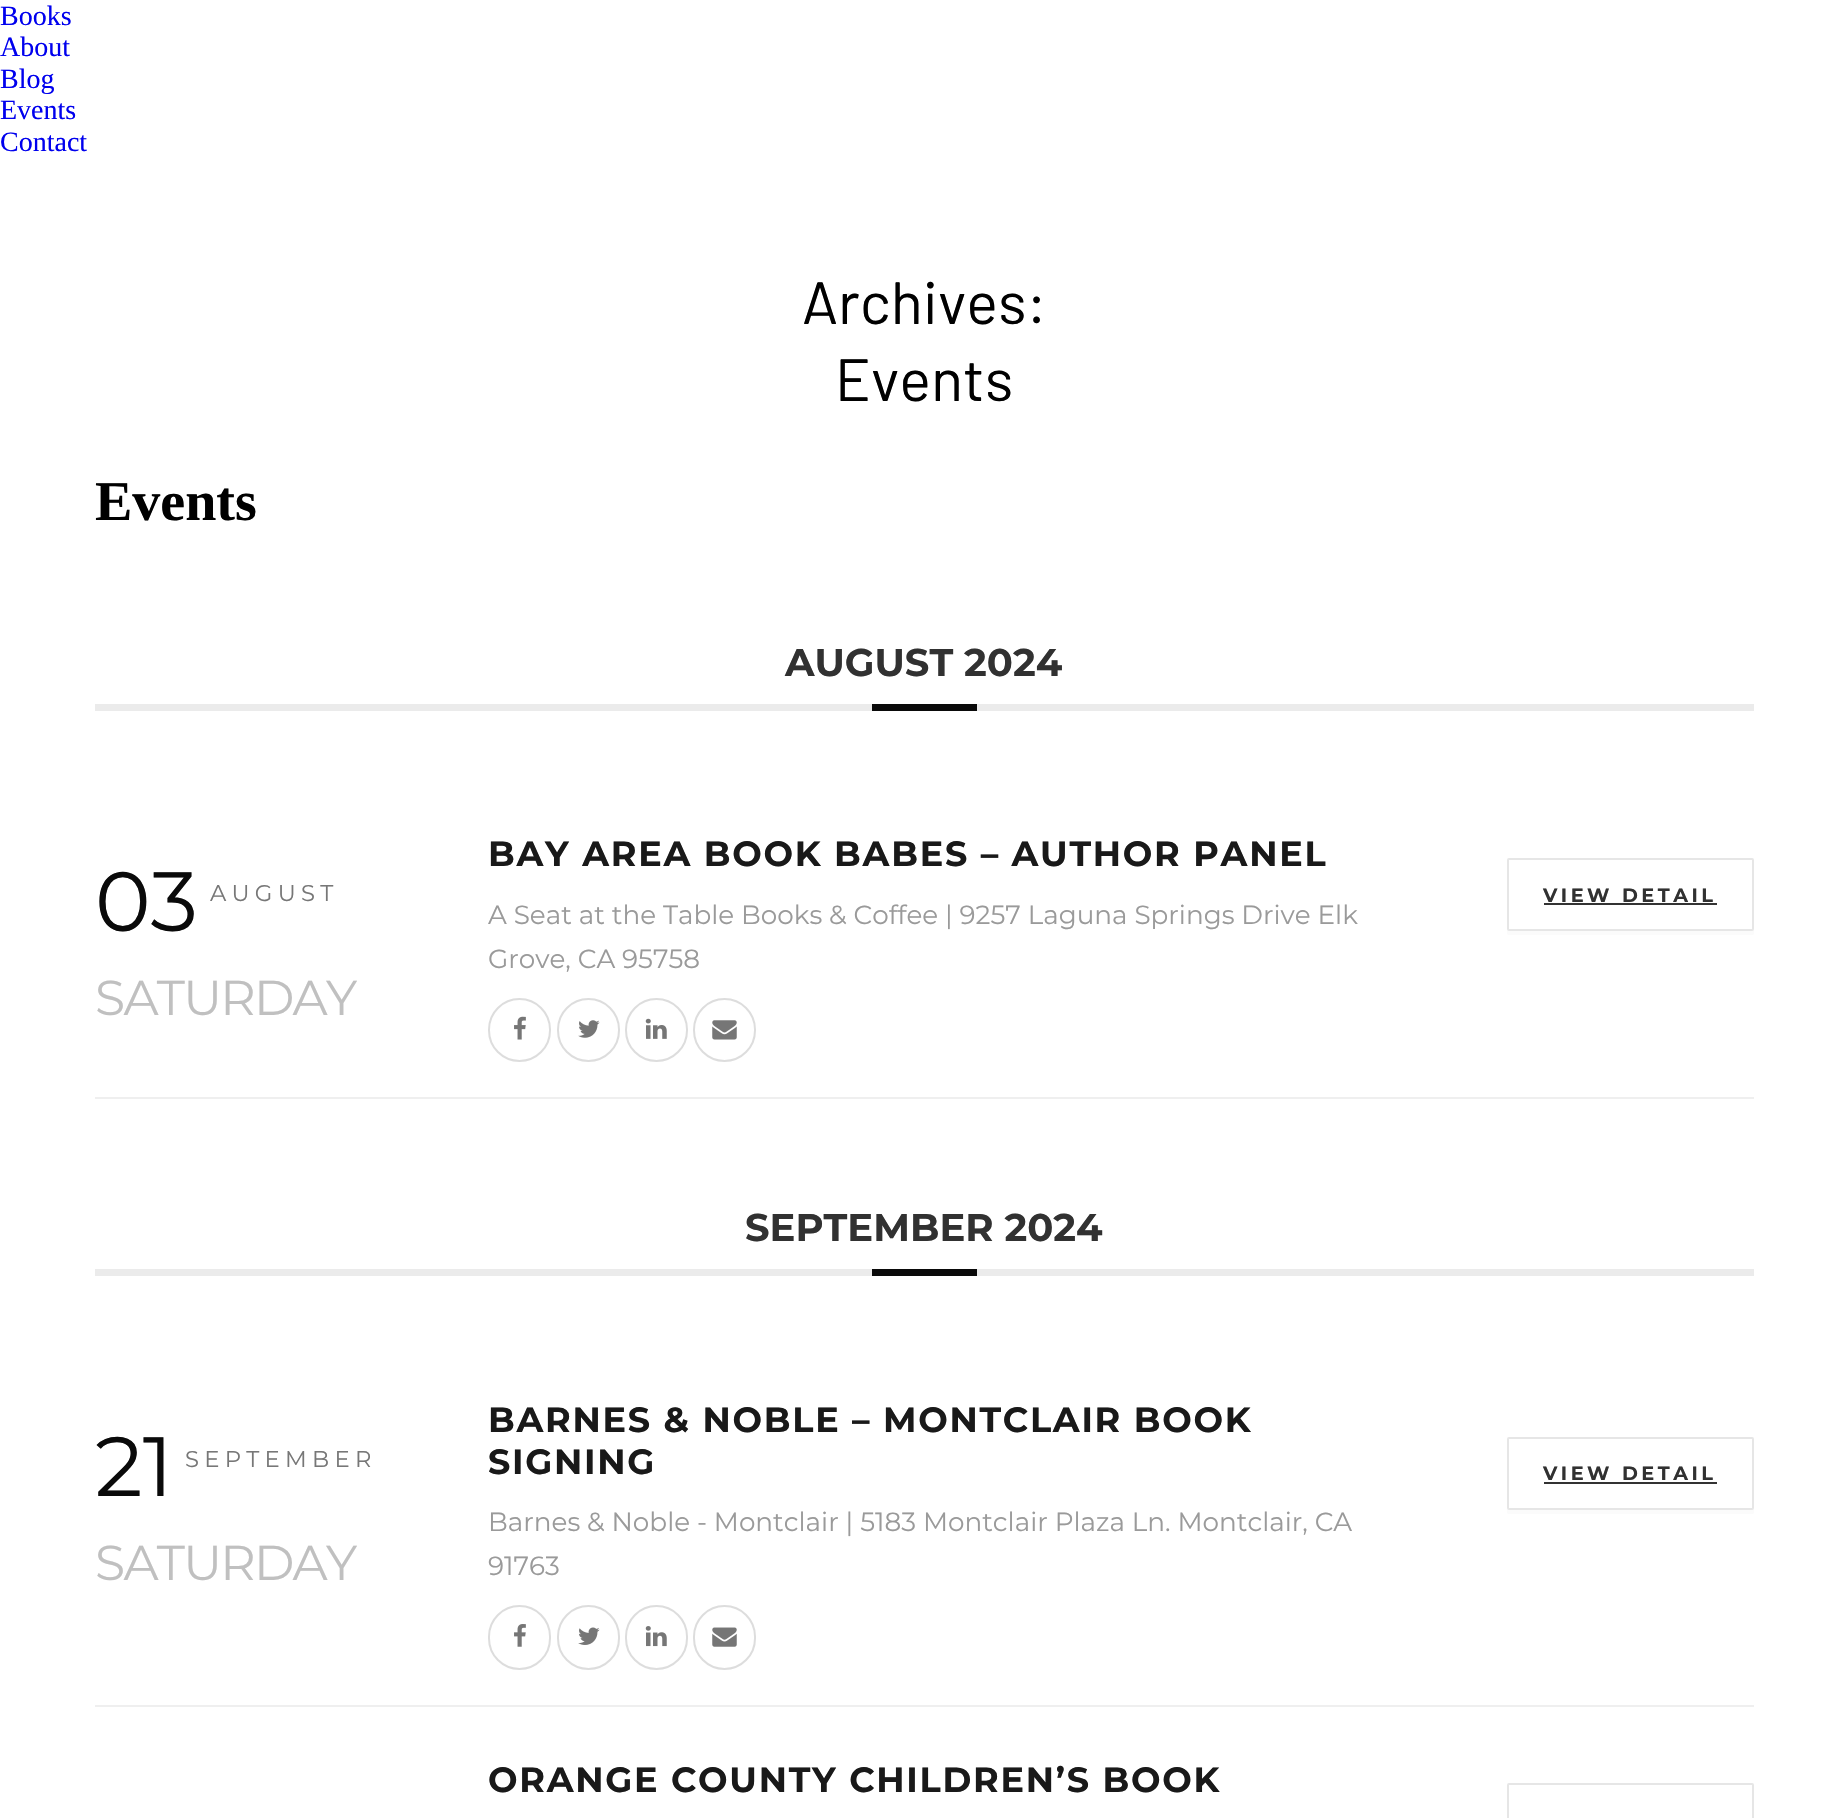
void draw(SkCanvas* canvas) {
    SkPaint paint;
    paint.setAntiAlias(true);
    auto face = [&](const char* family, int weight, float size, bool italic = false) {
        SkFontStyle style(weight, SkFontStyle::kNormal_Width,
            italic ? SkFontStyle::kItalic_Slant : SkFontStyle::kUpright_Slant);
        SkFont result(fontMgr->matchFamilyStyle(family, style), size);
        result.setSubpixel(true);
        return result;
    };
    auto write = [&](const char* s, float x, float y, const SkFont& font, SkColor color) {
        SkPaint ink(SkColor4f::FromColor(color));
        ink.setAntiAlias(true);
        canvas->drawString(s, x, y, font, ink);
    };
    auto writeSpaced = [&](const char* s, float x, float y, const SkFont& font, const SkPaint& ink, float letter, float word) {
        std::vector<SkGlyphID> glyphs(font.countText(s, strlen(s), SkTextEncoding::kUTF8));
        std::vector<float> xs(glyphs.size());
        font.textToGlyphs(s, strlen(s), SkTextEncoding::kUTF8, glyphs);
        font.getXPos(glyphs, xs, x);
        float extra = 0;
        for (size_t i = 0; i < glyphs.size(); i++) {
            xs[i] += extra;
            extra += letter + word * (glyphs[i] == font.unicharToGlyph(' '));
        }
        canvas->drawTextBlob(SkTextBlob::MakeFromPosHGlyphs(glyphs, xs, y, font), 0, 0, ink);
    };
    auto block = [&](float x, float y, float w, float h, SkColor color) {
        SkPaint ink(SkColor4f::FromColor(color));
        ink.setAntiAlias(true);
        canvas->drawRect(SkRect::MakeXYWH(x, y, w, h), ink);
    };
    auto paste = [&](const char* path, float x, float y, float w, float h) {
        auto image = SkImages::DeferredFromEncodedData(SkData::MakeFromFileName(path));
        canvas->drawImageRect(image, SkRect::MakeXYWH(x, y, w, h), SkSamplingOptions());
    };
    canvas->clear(SK_ColorWHITE);
    auto kFont1 = face("Liberation Serif", 400, 28);
    write("Books", 0, 25, kFont1, SkColorSetRGB(0, 0, 238));
    write("About", 0, 56, kFont1, SkColorSetRGB(0, 0, 238));
    write("Blog", 0, 88, kFont1, SkColorSetRGB(0, 0, 238));
    write("Events", 0, 119, kFont1, SkColorSetRGB(0, 0, 238));
    write("Contact", 0, 151, kFont1, SkColorSetRGB(0, 0, 238));
    auto kFont2 = face("Barlow", 400, 59.5f);
    write("Archives:", 802, 324, kFont2, SK_ColorBLACK);
    write("Events", 835, 401, kFont2, SK_ColorBLACK);
    auto kFont3 = face("Liberation Serif", 700, 56);
    write("Events", 95, 520, kFont3, SK_ColorBLACK);
    block(95, 704, 1659, 7, SkColorSetRGB(235, 235, 235));
    auto kFont4 = face("Montserrat", 700, 38.5f);
    write("AUGUST 2024", 785, 676, kFont4, SkColorSetRGB(49, 49, 49));
    block(872, 704, 105, 7, SkColorSetRGB(10, 10, 10));
    block(95, 1097, 1659, 2, SkColorSetRGB(239, 239, 239));
    auto kFont5 = face("Montserrat", 400, 84);
    write("03", 95, 931, kFont5, SkColorSetRGB(10, 10, 10));
    auto kFont6 = face("Montserrat", 400, 22.75f);
    paint.setColor(SkColorSetRGB(119, 119, 119));
    writeSpaced("AUGUST", 210, 901, kFont6, paint, 5.25f, 0);
    auto kFont7 = face("Montserrat", 400, 49);
    paint.setColor(SkColorSetRGB(192, 192, 192));
    writeSpaced("SATURDAY", 95, 1015, kFont7, paint, -1.75f, 0);
    auto kFont8 = face("Montserrat", 700, 35);
    paint.setColor(SkColorSetRGB(25, 25, 25));
    writeSpaced("BAY AREA BOOK BABES – AUTHOR PANEL", 488, 866, kFont8, paint, 1.75f, 0);
    auto kFont9 = face("Montserrat", 400, 26.25f);
    write("A Seat at the Table Books & Coffee | 9257 Laguna Springs Drive Elk", 488, 924, kFont9, SkColorSetRGB(154, 154, 154));
    write("Grove, CA 95758", 488, 968, kFont9, SkColorSetRGB(154, 154, 154));
    paint.setStyle(SkPaint::kStroke_Style);
    paint.setStrokeWidth(2);
    paint.setColor(SkColorSetRGB(221, 221, 221));
    canvas->drawRoundRect(SkRect::MakeXYWH(489, 999, 61, 62), 30.5f, 30.5f, paint);
    paste("pic1.png", 514, 1016, 12, 24);
    canvas->drawRoundRect(SkRect::MakeXYWH(558, 999, 61, 62), 30.5f, 30.5f, paint);
    paste("pic2.png", 578, 1020, 22, 18);
    canvas->drawRoundRect(SkRect::MakeXYWH(626, 999, 61, 62), 30.5f, 30.5f, paint);
    paste("pic3.png", 645, 1018, 22, 21);
    canvas->drawRoundRect(SkRect::MakeXYWH(694, 999, 61, 62), 30.5f, 30.5f, paint);
    paste("pic4.png", 712, 1020, 25, 20);
    paint.setStyle(SkPaint::kFill_Style);
    paint.setColor(SkColorSetRGB(251, 251, 251));
    canvas->drawPath(SkPathBuilder().moveTo(1507, 930).lineTo(1507, 933).cubicTo(1507, 934, 1508, 935, 1509, 935).lineTo(1752, 935).cubicTo(1753, 935, 1754, 934, 1754, 933).lineTo(1754, 863).lineTo(1754, 862).lineTo(1754, 929).cubicTo(1754, 930, 1753, 931, 1752, 931).lineTo(1508, 931).close().detach(), paint);
    paint.setStyle(SkPaint::kStroke_Style);
    paint.setColor(SkColorSetRGB(230, 230, 230));
    canvas->drawRoundRect(SkRect::MakeXYWH(1508, 859, 245, 71), 1, 1, paint);
    auto kFont10 = face("Montserrat", 700, 19.25f);
    paint.setStyle(SkPaint::kFill_Style);
    paint.setColor(SkColorSetRGB(49, 49, 49));
    writeSpaced("VIEW DETAIL", 1543, 902, kFont10, paint, 3.5f, 0);
    block(1544, 903, 173, 2, SkColorSetRGB(51, 51, 51));
    block(95, 1269, 1659, 7, SkColorSetRGB(235, 235, 235));
    write("SEPTEMBER 2024", 745, 1241, kFont4, SkColorSetRGB(49, 49, 49));
    block(872, 1269, 105, 7, SkColorSetRGB(10, 10, 10));
    block(95, 1705, 1659, 2, SkColorSetRGB(239, 239, 239));
    write("21", 95, 1496, kFont5, SkColorSetRGB(10, 10, 10));
    paint.setColor(SkColorSetRGB(119, 119, 119));
    writeSpaced("SEPTEMBER", 185, 1467, kFont6, paint, 5.25f, 0);
    paint.setColor(SkColorSetRGB(192, 192, 192));
    writeSpaced("SATURDAY", 95, 1580, kFont7, paint, -1.75f, 0);
    paint.setColor(SkColorSetRGB(25, 25, 25));
    writeSpaced("BARNES & NOBLE – MONTCLAIR BOOK", 488, 1432, kFont8, paint, 1.75f, 0);
    writeSpaced("SIGNING", 488, 1474, kFont8, paint, 1.75f, 0);
    write("Barnes & Noble - Montclair | 5183 Montclair Plaza Ln. Montclair, CA", 488, 1531, kFont9, SkColorSetRGB(154, 154, 154));
    write("91763", 488, 1575, kFont9, SkColorSetRGB(154, 154, 154));
    paint.setStyle(SkPaint::kStroke_Style);
    paint.setColor(SkColorSetRGB(221, 221, 221));
    canvas->drawRoundRect(SkRect::MakeXYWH(489, 1606, 61, 63), 30.5f, 30.5f, paint);
    paste("pic5.png", 514, 1624, 12, 23);
    canvas->drawRoundRect(SkRect::MakeXYWH(558, 1606, 61, 63), 30.5f, 30.5f, paint);
    paste("pic6.png", 578, 1627, 22, 18);
    canvas->drawRoundRect(SkRect::MakeXYWH(626, 1606, 61, 63), 30.5f, 30.5f, paint);
    paste("pic7.png", 645, 1626, 22, 21);
    canvas->drawRoundRect(SkRect::MakeXYWH(694, 1606, 61, 63), 30.5f, 30.5f, paint);
    paste("pic8.png", 712, 1627, 25, 20);
    paint.setStyle(SkPaint::kFill_Style);
    paint.setColor(SkColorSetRGB(251, 251, 251));
    canvas->drawPath(SkPathBuilder().moveTo(1507, 1509).lineTo(1507, 1512).cubicTo(1507, 1513, 1508, 1514, 1509, 1514).lineTo(1752, 1514).cubicTo(1753, 1514, 1754, 1513, 1754, 1512).lineTo(1754, 1442).lineTo(1754, 1441).lineTo(1754, 1508).cubicTo(1754, 1509, 1753, 1510, 1752, 1510).lineTo(1508, 1510).close().detach(), paint);
    paint.setStyle(SkPaint::kStroke_Style);
    paint.setColor(SkColorSetRGB(230, 230, 230));
    canvas->drawRoundRect(SkRect::MakeXYWH(1508, 1438, 245, 71), 1, 1, paint);
    paint.setStyle(SkPaint::kFill_Style);
    paint.setColor(SkColorSetRGB(49, 49, 49));
    writeSpaced("VIEW DETAIL", 1543, 1480, kFont10, paint, 3.5f, 0);
    block(1544, 1482, 173, 2, SkColorSetRGB(51, 51, 51));
    paint.setColor(SkColorSetRGB(25, 25, 25));
    writeSpaced("ORANGE COUNTY CHILDREN’S BOOK", 488, 1792, kFont8, paint, 1.75f, 0);
    paint.setStyle(SkPaint::kStroke_Style);
    paint.setColor(SkColorSetRGB(230, 230, 230));
    canvas->drawRoundRect(SkRect::MakeXYWH(1508, 1784, 245, 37), 1, 1, paint);
}
